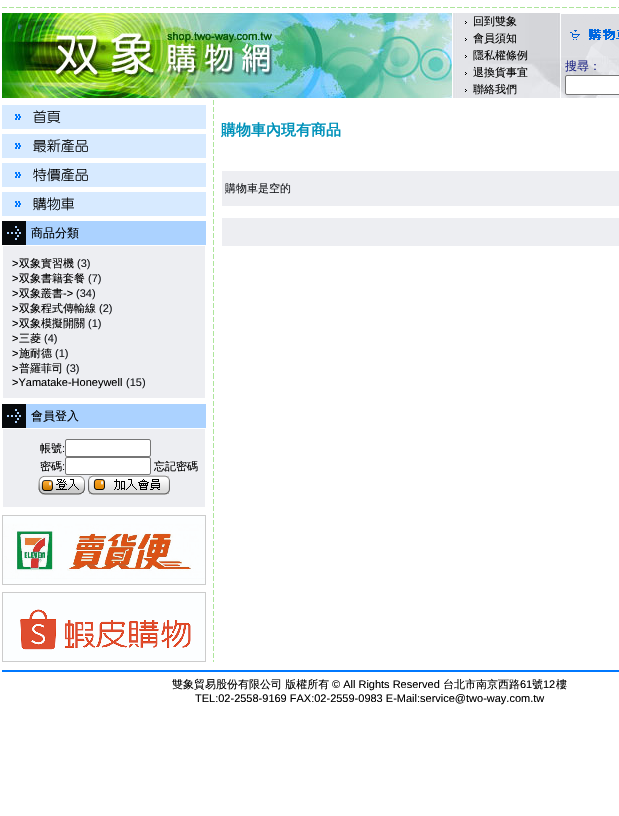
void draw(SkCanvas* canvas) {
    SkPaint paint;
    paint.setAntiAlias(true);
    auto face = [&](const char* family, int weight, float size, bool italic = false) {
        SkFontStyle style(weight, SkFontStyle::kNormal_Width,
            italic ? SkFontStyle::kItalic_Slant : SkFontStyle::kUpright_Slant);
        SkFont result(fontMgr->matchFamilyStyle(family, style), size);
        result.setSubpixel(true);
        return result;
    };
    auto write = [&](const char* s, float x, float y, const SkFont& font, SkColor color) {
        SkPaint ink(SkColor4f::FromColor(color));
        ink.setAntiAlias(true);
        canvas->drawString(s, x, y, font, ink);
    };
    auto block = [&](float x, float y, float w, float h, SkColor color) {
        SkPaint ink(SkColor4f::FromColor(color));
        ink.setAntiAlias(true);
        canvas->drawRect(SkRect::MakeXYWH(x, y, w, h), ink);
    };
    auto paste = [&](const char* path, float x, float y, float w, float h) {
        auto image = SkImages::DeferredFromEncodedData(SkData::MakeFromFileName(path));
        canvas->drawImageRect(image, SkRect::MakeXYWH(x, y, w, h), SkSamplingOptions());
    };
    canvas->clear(SK_ColorWHITE);
    paste("pic1.png", 2, 7, 617, 1);
    paste("pic2.png", 2, 13, 450, 85);
    paste("pic3.png", 453, 13, 108, 85);
    paste("pic4.png", 465, 21, 2, 3);
    auto kFont1 = face("WenQuanYi Zen Hei", 500, 11);
    write("回到雙象", 473, 25, kFont1, SK_ColorBLACK);
    paste("pic4.png", 465, 38, 2, 3);
    write("會員須知", 473, 42, kFont1, SK_ColorBLACK);
    paste("pic4.png", 465, 55, 2, 3);
    write("隱私權條例", 473, 59, kFont1, SK_ColorBLACK);
    paste("pic4.png", 465, 72, 2, 3);
    write("退換貨事宜", 473, 76, kFont1, SK_ColorBLACK);
    paste("pic4.png", 465, 89, 2, 3);
    write("聯絡我們", 473, 93, kFont1, SK_ColorBLACK);
    paste("pic5.png", 561, 14, 58, 42);
    paste("pic6.png", 561, 56, 58, 42);
    auto kFont2 = face("WenQuanYi Zen Hei", 500, 12);
    write("搜尋：", 565, 70, kFont2, SkColorSetRGB(37, 44, 137));
    paint.setColor(SK_ColorWHITE);
    canvas->drawRoundRect(SkRect::MakeXYWH(565.5f, 75.5f, 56, 19), 1.5f, 1.5f, paint);
    paint.setStyle(SkPaint::kStroke_Style);
    paint.setStrokeWidth(1);
    paint.setColor(SkColorSetRGB(118, 118, 118));
    canvas->drawRoundRect(SkRect::MakeXYWH(565.5f, 75.5f, 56, 19), 1.5f, 1.5f, paint);
    paste("pic7.png", 213, 100, 1, 562);
    paste("pic8.png", 213, 378, 1, 10);
    auto kFont3 = face("WenQuanYi Zen Hei", 700, 15);
    write("購物車內現有商品", 221, 135, kFont3, SkColorSetRGB(0, 146, 186));
    block(222, 171, 397, 35, SkColorSetRGB(237, 238, 242));
    write("購物車是空的", 225, 192, kFont1, SkColorSetRGB(23, 25, 29));
    block(222, 218, 397, 28, SkColorSetRGB(237, 238, 242));
    paste("pic9.png", 2, 105, 204, 24);
    paste("pic10.png", 2, 134, 204, 24);
    paste("pic11.png", 2, 163, 204, 24);
    paste("pic12.png", 2, 192, 204, 24);
    paste("pic13.png", 2, 221, 204, 24);
    write("商品分類", 31, 237, kFont2, SK_ColorBLACK);
    block(3, 246, 202, 152, SkColorSetRGB(237, 238, 242));
    auto kFont4 = face("Liberation Sans", 400, 11);
    write(">", 12, 267, kFont4, SK_ColorBLACK);
    write("双象實習機", 19, 267, kFont1, SK_ColorBLACK);
    write("(3)", 77, 267, kFont4, SkColorSetRGB(23, 25, 29));
    write(">", 12, 282, kFont4, SK_ColorBLACK);
    write("双象書籍套餐", 19, 282, kFont1, SK_ColorBLACK);
    write("(7)", 88, 282, kFont4, SkColorSetRGB(23, 25, 29));
    write(">", 12, 297, kFont4, SK_ColorBLACK);
    write("双象叢書", 19, 297, kFont1, SK_ColorBLACK);
    write("->", 63, 297, kFont4, SK_ColorBLACK);
    write("(34)", 76, 297, kFont4, SkColorSetRGB(23, 25, 29));
    write(">", 12, 312, kFont4, SK_ColorBLACK);
    write("双象程式傳輸線", 19, 312, kFont1, SK_ColorBLACK);
    write("(2)", 99, 312, kFont4, SkColorSetRGB(23, 25, 29));
    write(">", 12, 327, kFont4, SK_ColorBLACK);
    write("双象模擬開關", 19, 327, kFont1, SK_ColorBLACK);
    write("(1)", 88, 327, kFont4, SkColorSetRGB(23, 25, 29));
    write(">", 12, 342, kFont4, SK_ColorBLACK);
    write("三菱", 19, 342, kFont1, SK_ColorBLACK);
    write("(4)", 44, 342, kFont4, SkColorSetRGB(23, 25, 29));
    write(">", 12, 357, kFont4, SK_ColorBLACK);
    write("施耐德", 19, 357, kFont1, SK_ColorBLACK);
    write("(1)", 55, 357, kFont4, SkColorSetRGB(23, 25, 29));
    write(">", 12, 372, kFont4, SK_ColorBLACK);
    write("普羅菲司", 19, 372, kFont1, SK_ColorBLACK);
    write("(3)", 66, 372, kFont4, SkColorSetRGB(23, 25, 29));
    write(">Yamatake-Honeywell", 12, 386, kFont4, SK_ColorBLACK);
    write("(15)", 126, 386, kFont4, SkColorSetRGB(23, 25, 29));
    paste("pic13.png", 2, 404, 204, 24);
    write("會員登入", 31, 420, kFont2, SK_ColorBLACK);
    block(3, 429, 202, 78, SkColorSetRGB(237, 238, 242));
    write("帳號", 40, 452, kFont1, SK_ColorBLACK);
    write(":", 62, 452, kFont4, SK_ColorBLACK);
    paint.setStyle(SkPaint::kFill_Style);
    paint.setColor(SK_ColorWHITE);
    canvas->drawRoundRect(SkRect::MakeXYWH(65.5f, 439.5f, 85, 17), 1.5f, 1.5f, paint);
    paint.setStyle(SkPaint::kStroke_Style);
    paint.setColor(SkColorSetRGB(118, 118, 118));
    canvas->drawRoundRect(SkRect::MakeXYWH(65.5f, 439.5f, 85, 17), 1.5f, 1.5f, paint);
    write("密碼", 40, 470, kFont1, SK_ColorBLACK);
    write(":", 62, 470, kFont4, SK_ColorBLACK);
    paint.setStyle(SkPaint::kFill_Style);
    paint.setColor(SK_ColorWHITE);
    canvas->drawRoundRect(SkRect::MakeXYWH(65.5f, 457.5f, 85, 17), 1.5f, 1.5f, paint);
    paint.setStyle(SkPaint::kStroke_Style);
    paint.setColor(SkColorSetRGB(118, 118, 118));
    canvas->drawRoundRect(SkRect::MakeXYWH(65.5f, 457.5f, 85, 17), 1.5f, 1.5f, paint);
    write("忘記密碼", 154, 470, kFont1, SK_ColorBLACK);
    paste("pic14.png", 38, 475, 47, 20);
    paste("pic15.png", 88, 475, 82, 20);
    block(2, 515, 204, 70, SkColorSetRGB(204, 204, 204));
    paste("pic16.png", 3, 516, 202, 68);
    block(2, 592, 204, 70, SkColorSetRGB(204, 204, 204));
    paste("pic17.png", 3, 593, 202, 68);
    block(2, 670, 617, 2, SkColorSetRGB(0, 120, 255));
    write("雙象貿易股份有限公司 版權所有", 172, 688, kFont1, SK_ColorBLACK);
    write("© All Rights Reserved", 332, 688, kFont4, SK_ColorBLACK);
    write("台北市南京西路", 443, 688, kFont1, SK_ColorBLACK);
    write("61", 520, 688, kFont4, SK_ColorBLACK);
    write("號", 532, 688, kFont1, SK_ColorBLACK);
    write("12", 543, 688, kFont4, SK_ColorBLACK);
    write("樓", 556, 688, kFont1, SK_ColorBLACK);
    write("TEL:02-2558-9169 FAX:02-2559-0983 E-Mail:service@two-way.com.tw", 195, 702, kFont4, SK_ColorBLACK);
}
